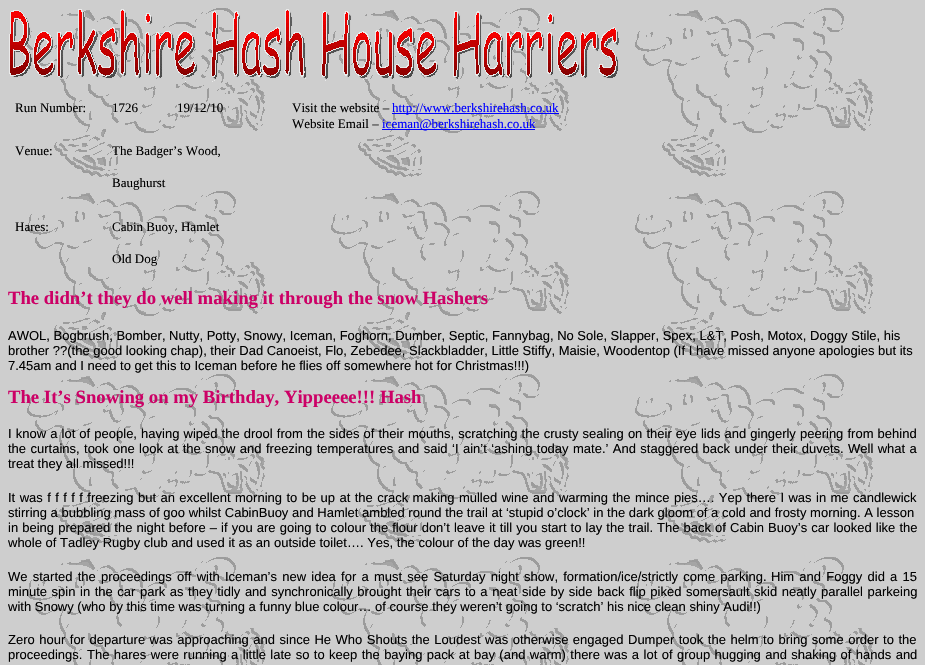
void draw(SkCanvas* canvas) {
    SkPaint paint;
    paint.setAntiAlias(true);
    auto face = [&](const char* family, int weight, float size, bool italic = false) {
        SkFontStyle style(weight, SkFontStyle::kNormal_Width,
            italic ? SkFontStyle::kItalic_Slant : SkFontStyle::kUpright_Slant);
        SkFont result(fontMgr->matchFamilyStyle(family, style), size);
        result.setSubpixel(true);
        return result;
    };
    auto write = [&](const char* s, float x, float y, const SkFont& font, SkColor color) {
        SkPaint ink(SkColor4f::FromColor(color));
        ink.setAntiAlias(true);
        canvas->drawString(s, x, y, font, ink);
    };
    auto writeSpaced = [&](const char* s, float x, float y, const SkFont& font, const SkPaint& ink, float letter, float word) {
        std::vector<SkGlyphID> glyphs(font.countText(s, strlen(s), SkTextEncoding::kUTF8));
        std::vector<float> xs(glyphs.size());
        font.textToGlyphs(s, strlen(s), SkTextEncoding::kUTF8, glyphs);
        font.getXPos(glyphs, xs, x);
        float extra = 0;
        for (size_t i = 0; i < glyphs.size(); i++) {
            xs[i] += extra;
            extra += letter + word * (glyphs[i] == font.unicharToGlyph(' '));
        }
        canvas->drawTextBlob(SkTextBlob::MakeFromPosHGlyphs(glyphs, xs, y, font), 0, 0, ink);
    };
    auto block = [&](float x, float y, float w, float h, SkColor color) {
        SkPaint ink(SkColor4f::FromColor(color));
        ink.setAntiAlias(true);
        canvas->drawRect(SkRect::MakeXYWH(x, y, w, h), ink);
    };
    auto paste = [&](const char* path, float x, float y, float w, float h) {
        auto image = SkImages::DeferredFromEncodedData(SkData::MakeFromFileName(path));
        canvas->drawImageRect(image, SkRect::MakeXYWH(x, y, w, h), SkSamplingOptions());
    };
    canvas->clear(SK_ColorWHITE);
    paste("pic1.png", 0, 0, 925, 665);
    paste("pic2.png", 9, 9, 610, 73);
    auto kFont1 = face("Liberation Serif", 400, 13);
    write("Run Number:", 15, 112, kFont1, SK_ColorBLACK);
    write("1726", 112, 112, kFont1, SK_ColorBLACK);
    write("19/12/10", 177, 112, kFont1, SK_ColorBLACK);
    write("Visit the website –", 292, 112, kFont1, SK_ColorBLACK);
    block(392, 113, 167, 1, SkColorSetRGB(0, 0, 255));
    write("http://www.berkshirehash.co.uk", 392, 112, kFont1, SkColorSetRGB(0, 0, 255));
    write("Website Email –", 292, 128, kFont1, SK_ColorBLACK);
    block(382, 129, 153, 1, SkColorSetRGB(0, 0, 255));
    write("iceman@berkshirehash.co.uk", 382, 128, kFont1, SkColorSetRGB(0, 0, 255));
    write("Venue:", 15, 155, kFont1, SK_ColorBLACK);
    write("The Badger’s Wood,", 112, 155, kFont1, SK_ColorBLACK);
    write("Baughurst", 112, 187, kFont1, SK_ColorBLACK);
    write("Hares:", 15, 231, kFont1, SK_ColorBLACK);
    write("Cabin Buoy, Hamlet", 112, 231, kFont1, SK_ColorBLACK);
    write("Old Dog", 112, 263, kFont1, SK_ColorBLACK);
    auto kFont2 = face("Liberation Serif", 700, 18.7f);
    write("The didn’t they do well making it through the snow Hashers", 8, 304, kFont2, SkColorSetRGB(204, 0, 102));
    auto kFont3 = face("Liberation Sans", 400, 13);
    write("AWOL, Bogbrush, Bomber, Nutty, Potty, Snowy, Iceman, Foghorn, Dumber, Septic, Fannybag, No Sole, Slapper, Spex, L&T, Posh, Motox, Doggy Stile, his", 8, 340, kFont3, SK_ColorBLACK);
    write("brother ?\077(the good looking chap), their Dad Canoeist, Flo, Zebedee, Slackbladder, Little Stiffy, Maisie, Woodentop (If I have missed anyone apologies but its", 8, 355, kFont3, SK_ColorBLACK);
    write("7.45am and I need to get this to Iceman before he flies off somewhere hot for Christmas!!!)", 8, 370, kFont3, SK_ColorBLACK);
    write("The It’s Snowing on my Birthday, Yippeeee!!! Hash", 8, 403, kFont2, SkColorSetRGB(204, 0, 102));
    paint.setColor(SK_ColorBLACK);
    writeSpaced("I know a lot of people, having wiped the drool from the sides of their mouths, scratching the crusty sealing on their eye lids and gingerly peering from behind", 8, 438, kFont3, paint, 0, 0.5f);
    writeSpaced("the curtains, took one look at the snow and freezing temperatures and said ‘I ain’t ‘ashing today mate.’ And staggered back under their duvets.", 8, 453, kFont3, paint, 0, 0.8f);
    writeSpaced("Well what a", 848, 453, kFont3, paint, 0, 0.8f);
    write("treat they all missed!!!", 8, 468, kFont3, SK_ColorBLACK);
    writeSpaced("It was f f f f f freezing but an excellent morning to be up at the crack making mulled wine and warming the mince pies…. Yep there I was in me candlewick", 8, 502, kFont3, paint, 0, 0.8f);
    write("stirring a bubbling mass of goo whilst CabinBuoy and Hamlet ambled round the trail at ‘stupid o’clock’ in the dark gloom of a cold and frosty morning. A lesson", 8, 517, kFont3, SK_ColorBLACK);
    writeSpaced("in being prepared the night before – if you are going to colour the flour don’t leave it till you start to lay the trail.", 8, 532, kFont3, paint, 0, 0.5f);
    writeSpaced("The back of Cabin Buoy’s car looked like the", 657, 532, kFont3, paint, 0, 0.5f);
    write("whole of Tadley Rugby club and used it as an outside toilet…. Yes, the colour of the day was green!!", 8, 547, kFont3, SK_ColorBLACK);
    writeSpaced("We started the proceedings off with Iceman’s new idea for a must see Saturday night show, formation/ice/strictly come parking.", 8, 581, kFont3, paint, 0, 1.6f);
    writeSpaced("Him and Foggy did a 15", 771, 581, kFont3, paint, 0, 1.6f);
    writeSpaced("minute spin in the car park as they tidly and synchronically brought their cars to a neat side by side back flip piked somersault skid neatly parallel parkeing", 8, 596, kFont3, paint, 0, 0.95f);
    write("with Snowy (who by this time was turning a funny blue colour… of course they weren’t going to ‘scratch’ his nice clean shiny Audi!!)", 8, 611, kFont3, SK_ColorBLACK);
    writeSpaced("Zero hour for departure was approaching and since He Who Shouts the Loudest was otherwise engaged Dumper took the helm to bring some order to the", 8, 644, kFont3, paint, 0, 0.9f);
    write("proceedings.", 8, 659, kFont3, SK_ColorBLACK);
    writeSpaced("The hares were running a little late so to keep the baying pack at bay (and warm) there was a lot of group hugging and shaking of hands and", 87, 659, kFont3, paint, 0, 0.8f);
}
